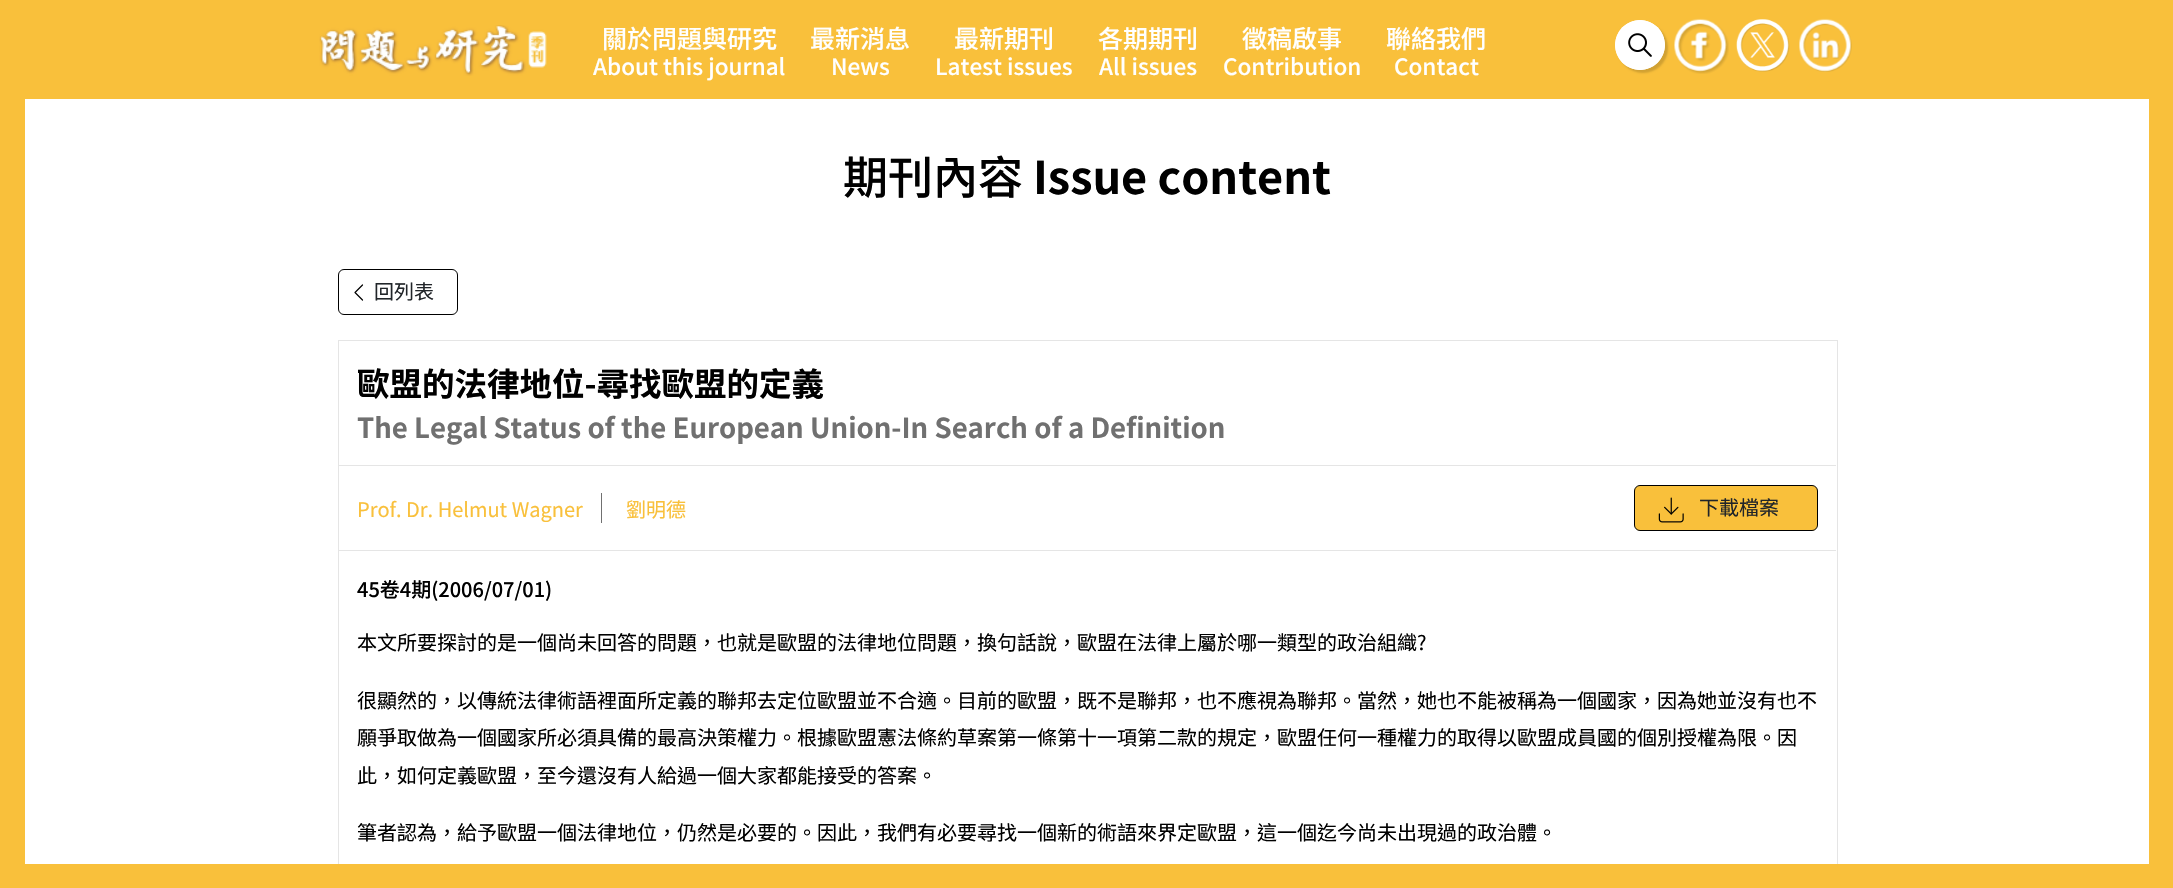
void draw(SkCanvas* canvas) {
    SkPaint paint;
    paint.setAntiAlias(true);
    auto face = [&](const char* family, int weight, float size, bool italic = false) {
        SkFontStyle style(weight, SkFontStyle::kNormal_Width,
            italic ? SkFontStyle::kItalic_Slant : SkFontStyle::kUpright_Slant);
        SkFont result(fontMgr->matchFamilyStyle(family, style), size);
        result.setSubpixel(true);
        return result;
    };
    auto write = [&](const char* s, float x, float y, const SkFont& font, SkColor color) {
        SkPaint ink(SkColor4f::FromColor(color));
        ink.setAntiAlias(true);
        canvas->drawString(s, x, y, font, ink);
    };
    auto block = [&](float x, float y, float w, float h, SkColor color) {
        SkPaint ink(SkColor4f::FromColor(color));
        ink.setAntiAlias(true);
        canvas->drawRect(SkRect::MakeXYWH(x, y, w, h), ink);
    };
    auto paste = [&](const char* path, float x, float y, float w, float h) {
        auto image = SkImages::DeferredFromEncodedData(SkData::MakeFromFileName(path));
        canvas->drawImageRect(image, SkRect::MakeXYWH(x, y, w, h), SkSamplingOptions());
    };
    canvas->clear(SK_ColorWHITE);
    block(0, 0, 25, 864, SkColorSetRGB(249, 192, 59));
    block(25, 0, 2124, 99, SkColorSetRGB(249, 192, 59));
    paste("pic1.png", 319, 25, 228, 51);
    auto kFont1 = face("Noto Sans TC", 500, 25);
    write("關於問題與研究", 602, 48, kFont1, SK_ColorWHITE);
    auto kFont2 = face("Noto Sans TC", 500, 22.5f);
    write("About this journal", 593, 75, kFont2, SK_ColorWHITE);
    write("最新消息", 810, 48, kFont1, SK_ColorWHITE);
    write("News", 831, 75, kFont2, SK_ColorWHITE);
    write("最新期刊", 954, 48, kFont1, SK_ColorWHITE);
    write("Latest issues", 935, 75, kFont2, SK_ColorWHITE);
    write("各期期刊", 1098, 48, kFont1, SK_ColorWHITE);
    write("All issues", 1099, 75, kFont2, SK_ColorWHITE);
    write("徵稿啟事", 1242, 48, kFont1, SK_ColorWHITE);
    write("Contribution", 1223, 75, kFont2, SK_ColorWHITE);
    write("聯絡我們", 1386, 48, kFont1, SK_ColorWHITE);
    write("Contact", 1394, 75, kFont2, SK_ColorWHITE);
    paint.setColor(SkColorSetARGB(41, 0, 0, 0));
    paint.setMaskFilter(SkMaskFilter::MakeBlur(kNormal_SkBlurStyle, 1));
    canvas->drawRoundRect(SkRect::MakeXYWH(1618, 23, 50, 50), 25, 25, paint);
    paint.setMaskFilter(nullptr);
    paint.setColor(SK_ColorWHITE);
    canvas->drawCircle(1640, 45, 25, paint);
    paste("pic2.png", 1615, 20, 50, 50);
    paste("pic3.png", 1674, 18, 55, 56);
    paste("pic4.png", 1736, 19, 54, 53);
    paste("pic5.png", 1799, 18, 53, 54);
    block(2149, 0, 24, 864, SkColorSetRGB(249, 192, 59));
    auto kFont3 = face("Noto Sans TC", 500, 45);
    write("期刊內容", 843, 194, kFont3, SK_ColorBLACK);
    auto kFont4 = face("Noto Sans TC", 700, 45);
    write("Issue content", 1033, 194, kFont4, SK_ColorBLACK);
    paint.setStyle(SkPaint::kStroke_Style);
    paint.setStrokeWidth(1);
    paint.setColor(SK_ColorBLACK);
    canvas->drawRoundRect(SkRect::MakeXYWH(338.5f, 269.5f, 119, 45), 5.5f, 5.5f, paint);
    paint.setStrokeWidth(1.2f);
    paint.setStrokeCap(SkPaint::kRound_Cap);
    paint.setStrokeJoin(SkPaint::kRound_Join);
    canvas->drawPath(SkPathBuilder().moveTo(362.5f, 285).lineTo(355, 292.5f).lineTo(362.5f, 300).detach(), paint);
    auto kFont5 = face("Noto Sans TC", 400, 20);
    write("回列表", 374, 299, kFont5, SkColorSetRGB(33, 37, 41));
    paint.setStrokeWidth(1);
    paint.setStrokeCap(SkPaint::kButt_Cap);
    paint.setStrokeJoin(SkPaint::kMiter_Join);
    paint.setColor(SkColorSetRGB(229, 229, 229));
    canvas->drawRect(SkRect::MakeXYWH(338.5f, 340.5f, 1499, 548), paint);
    block(339, 465, 1497, 1, SkColorSetRGB(229, 229, 229));
    auto kFont6 = face("Noto Sans TC", 700, 32.5f);
    write("歐盟的法律地位-尋找歐盟的定義", 357, 396, kFont6, SK_ColorBLACK);
    auto kFont7 = face("Noto Sans TC", 700, 27.5f);
    write("The Legal Status of the European Union-In Search of a Definition", 357, 438, kFont7, SkColorSetRGB(112, 112, 112));
    block(339, 550, 1497, 1, SkColorSetRGB(229, 229, 229));
    write("Prof. Dr. Helmut Wagner", 357, 517, kFont5, SkColorSetRGB(249, 192, 59));
    block(601, 493, 1, 30, SkColorSetRGB(112, 112, 112));
    write("劉明德", 626, 517, kFont5, SkColorSetRGB(249, 192, 59));
    paint.setStyle(SkPaint::kFill_Style);
    paint.setColor(SkColorSetRGB(249, 192, 59));
    canvas->drawRoundRect(SkRect::MakeXYWH(1634.5f, 485.5f, 183, 45), 5.5f, 5.5f, paint);
    paint.setStyle(SkPaint::kStroke_Style);
    paint.setColor(SK_ColorBLACK);
    canvas->drawRoundRect(SkRect::MakeXYWH(1634.5f, 485.5f, 183, 45), 5.5f, 5.5f, paint);
    paste("pic6.png", 1658, 497, 26, 26);
    write("下載檔案", 1699, 515, kFont5, SkColorSetRGB(33, 37, 41));
    auto kFont8 = face("Noto Sans TC", 500, 20);
    write("45卷4期(2006/07/01)", 357, 597, kFont8, SK_ColorBLACK);
    write("本文所要探討的是一個尚未回答的問題，也就是歐盟的法律地位問題，換句話說，歐盟在法律上屬於哪一類型的政治組織?", 357, 650, kFont5, SK_ColorBLACK);
    write("很顯然的，以傳統法律術語裡面所定義的聯邦去定位歐盟並不合適。目前的歐盟，既不是聯邦，也不應視為聯邦。當然，她也不能被稱為一個國家，因為她並沒有也不", 357, 708, kFont5, SK_ColorBLACK);
    write("願爭取做為一個國家所必須具備的最高決策權力。根據歐盟憲法條約草案第一條第十一項第二款的規定，歐盟任何一種權力的取得以歐盟成員國的個別授權為限。因", 357, 745, kFont5, SK_ColorBLACK);
    write("此，如何定義歐盟，至今還沒有人給過一個大家都能接受的答案。", 357, 783, kFont5, SK_ColorBLACK);
    write("筆者認為，給予歐盟一個法律地位，仍然是必要的。因此，我們有必要尋找一個新的術語來界定歐盟，這一個迄今尚未出現過的政治體。", 357, 840, kFont5, SK_ColorBLACK);
    block(0, 864, 2173, 24, SkColorSetRGB(249, 192, 59));
}
